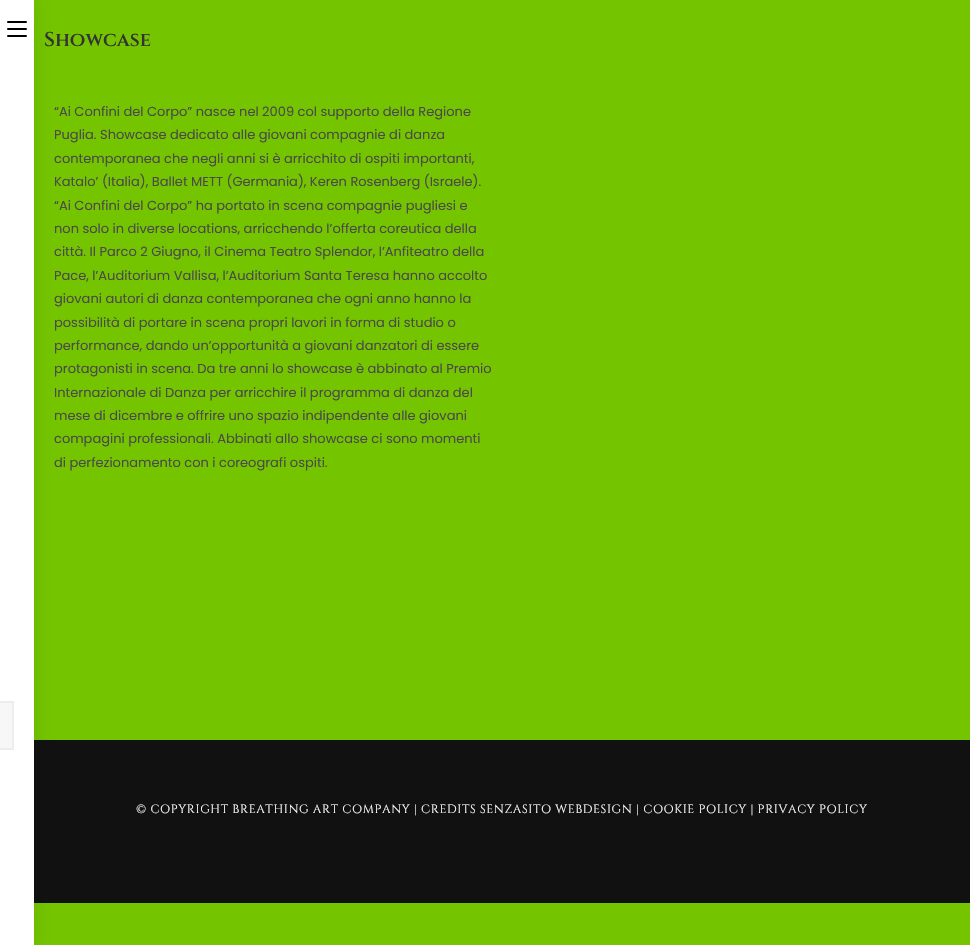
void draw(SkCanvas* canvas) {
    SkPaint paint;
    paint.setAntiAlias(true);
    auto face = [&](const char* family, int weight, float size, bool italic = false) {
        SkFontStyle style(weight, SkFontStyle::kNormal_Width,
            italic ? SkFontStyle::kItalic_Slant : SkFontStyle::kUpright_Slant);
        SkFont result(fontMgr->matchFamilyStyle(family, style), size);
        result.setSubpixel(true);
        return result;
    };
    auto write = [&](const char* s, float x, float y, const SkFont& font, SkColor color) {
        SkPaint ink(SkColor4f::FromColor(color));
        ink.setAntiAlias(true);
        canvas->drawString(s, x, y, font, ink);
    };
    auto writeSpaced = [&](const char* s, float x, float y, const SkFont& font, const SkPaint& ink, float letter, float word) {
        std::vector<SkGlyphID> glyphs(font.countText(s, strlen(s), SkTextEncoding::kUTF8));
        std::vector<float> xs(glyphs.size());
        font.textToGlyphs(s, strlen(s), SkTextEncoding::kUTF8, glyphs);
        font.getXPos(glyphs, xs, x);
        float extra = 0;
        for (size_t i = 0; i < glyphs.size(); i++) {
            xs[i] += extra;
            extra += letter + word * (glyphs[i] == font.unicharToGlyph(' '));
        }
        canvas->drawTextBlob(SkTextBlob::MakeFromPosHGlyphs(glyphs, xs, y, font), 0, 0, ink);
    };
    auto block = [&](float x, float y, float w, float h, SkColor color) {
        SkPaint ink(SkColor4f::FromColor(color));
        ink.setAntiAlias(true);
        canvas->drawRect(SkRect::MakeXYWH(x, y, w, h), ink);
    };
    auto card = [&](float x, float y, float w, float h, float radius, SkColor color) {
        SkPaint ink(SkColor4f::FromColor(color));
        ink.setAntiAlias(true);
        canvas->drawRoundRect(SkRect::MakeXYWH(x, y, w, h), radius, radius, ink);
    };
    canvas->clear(SkColorSetRGB(116, 197, 0));
    block(34, 740, 936, 163, SkColorSetRGB(17, 17, 17));
    paint.setColor(SkColorSetARGB(26, 0, 0, 0));
    paint.setMaskFilter(SkMaskFilter::MakeBlur(kNormal_SkBlurStyle, 10));
    canvas->drawRect(SkRect::MakeXYWH(-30, 0, 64, 945), paint);
    paint.setMaskFilter(nullptr);
    block(0, 0, 34, 945, SK_ColorWHITE);
    card(7, 28, 20, 2, 1, SK_ColorBLACK);
    card(7, 21, 20, 2, 1, SK_ColorBLACK);
    card(7, 35, 20, 2, 1, SK_ColorBLACK);
    paint.setColor(SkColorSetRGB(247, 247, 247));
    canvas->drawRect(SkRect::MakeXYWH(-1, 702, 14, 47), paint);
    paint.setStyle(SkPaint::kStroke_Style);
    paint.setStrokeWidth(2);
    paint.setColor(SkColorSetRGB(237, 237, 237));
    canvas->drawRect(SkRect::MakeXYWH(-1, 702, 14, 47), paint);
    auto kFont1 = face("Cinzel", 600, 20);
    write("Showcase", 44, 46, kFont1, SkColorSetRGB(51, 51, 51));
    auto kFont2 = face("Poppins", 400, 13);
    write("“Ai Confini del Corpo” nasce nel 2009 col supporto della Regione", 54, 116, kFont2, SkColorSetRGB(74, 74, 74));
    write("Puglia. Showcase dedicato alle giovani compagnie di danza", 54, 139, kFont2, SkColorSetRGB(74, 74, 74));
    write("contemporanea che negli anni si è arricchito di ospiti importanti,", 54, 163, kFont2, SkColorSetRGB(74, 74, 74));
    write("Katalo’ (Italia), Ballet METT (Germania), Keren Rosenberg (Israele).", 54, 186, kFont2, SkColorSetRGB(74, 74, 74));
    write("“Ai Confini del Corpo” ha portato in scena compagnie pugliesi e", 54, 210, kFont2, SkColorSetRGB(74, 74, 74));
    write("non solo in diverse locations, arricchendo l’offerta coreutica della", 54, 233, kFont2, SkColorSetRGB(74, 74, 74));
    write("città. Il Parco 2 Giugno, il Cinema Teatro Splendor, l’Anfiteatro della", 54, 256, kFont2, SkColorSetRGB(74, 74, 74));
    write("Pace, l’Auditorium Vallisa, l’Auditorium Santa Teresa hanno accolto", 54, 280, kFont2, SkColorSetRGB(74, 74, 74));
    write("giovani autori di danza contemporanea che ogni anno hanno la", 54, 303, kFont2, SkColorSetRGB(74, 74, 74));
    write("possibilità di portare in scena propri lavori in forma di studio o", 54, 327, kFont2, SkColorSetRGB(74, 74, 74));
    write("performance, dando un’opportunità a giovani danzatori di essere", 54, 350, kFont2, SkColorSetRGB(74, 74, 74));
    write("protagonisti in scena. Da tre anni lo showcase è abbinato al Premio", 54, 373, kFont2, SkColorSetRGB(74, 74, 74));
    write("Internazionale di Danza per arricchire il programma di danza del", 54, 397, kFont2, SkColorSetRGB(74, 74, 74));
    write("mese di dicembre e offrire uno spazio indipendente alle giovani", 54, 420, kFont2, SkColorSetRGB(74, 74, 74));
    write("compagini professionali. Abbinati allo showcase ci sono momenti", 54, 443, kFont2, SkColorSetRGB(74, 74, 74));
    write("di perfezionamento con i coreografi ospiti.", 54, 467, kFont2, SkColorSetRGB(74, 74, 74));
    auto kFont3 = face("Cinzel", 400, 12);
    paint.setStyle(SkPaint::kFill_Style);
    paint.setColor(SK_ColorWHITE);
    writeSpaced("© COPYRIGHT BREATHING ART COMPANY | CREDITS SENZASITO WEBDESIGN | COOKIE POLICY | PRIVACY POLICY", 136, 813, kFont3, paint, 0.6f, 0);
}
